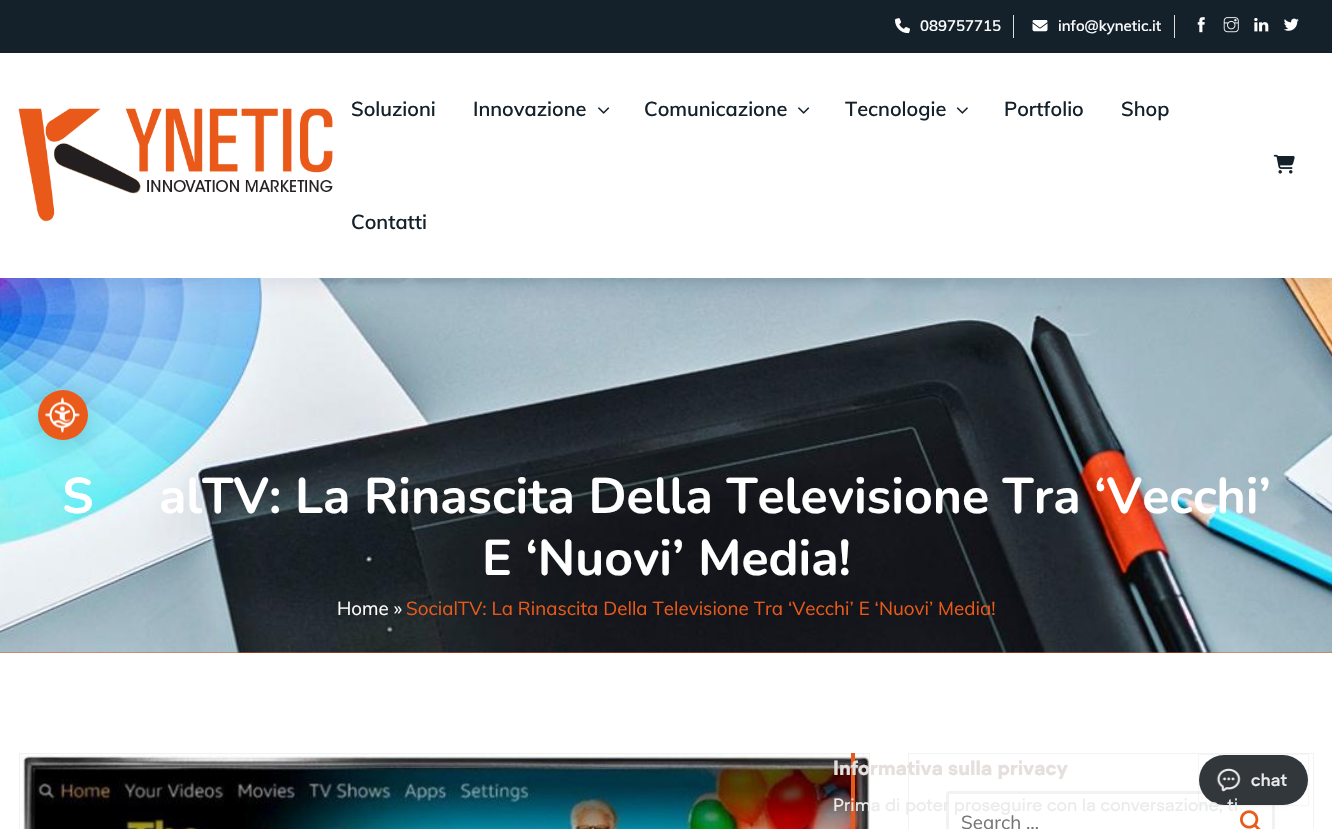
void draw(SkCanvas* canvas) {
    SkPaint paint;
    paint.setAntiAlias(true);
    auto face = [&](const char* family, int weight, float size, bool italic = false) {
        SkFontStyle style(weight, SkFontStyle::kNormal_Width,
            italic ? SkFontStyle::kItalic_Slant : SkFontStyle::kUpright_Slant);
        SkFont result(fontMgr->matchFamilyStyle(family, style), size);
        result.setSubpixel(true);
        return result;
    };
    auto write = [&](const char* s, float x, float y, const SkFont& font, SkColor color) {
        SkPaint ink(SkColor4f::FromColor(color));
        ink.setAntiAlias(true);
        canvas->drawString(s, x, y, font, ink);
    };
    auto block = [&](float x, float y, float w, float h, SkColor color) {
        SkPaint ink(SkColor4f::FromColor(color));
        ink.setAntiAlias(true);
        canvas->drawRect(SkRect::MakeXYWH(x, y, w, h), ink);
    };
    auto card = [&](float x, float y, float w, float h, float radius, SkColor color) {
        SkPaint ink(SkColor4f::FromColor(color));
        ink.setAntiAlias(true);
        canvas->drawRoundRect(SkRect::MakeXYWH(x, y, w, h), radius, radius, ink);
    };
    auto paste = [&](const char* path, float x, float y, float w, float h) {
        auto image = SkImages::DeferredFromEncodedData(SkData::MakeFromFileName(path));
        canvas->drawImageRect(image, SkRect::MakeXYWH(x, y, w, h), SkSamplingOptions());
    };
    canvas->clear(SK_ColorWHITE);
    block(0, 652, 1332, 1, SkColorSetRGB(233, 90, 26));
    paste("pic12.png", 0, 278, 1332, 375);
    paint.setColor(SkColorSetARGB(26, 0, 33, 85));
    paint.setMaskFilter(SkMaskFilter::MakeBlur(kNormal_SkBlurStyle, 9.5f));
    canvas->drawRect(SkRect::MakeXYWH(0, 6, 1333, 278), paint);
    paint.setMaskFilter(nullptr);
    block(0, 53, 1332, 225, SK_ColorWHITE);
    block(0, 0, 1332, 53, SkColorSetRGB(20, 33, 43));
    paste("pic1.png", 895, 18, 15, 16);
    auto kFont1 = face("Muli", 600, 15);
    write("089757715", 920, 31, kFont1, SK_ColorWHITE);
    block(1013, 15, 1, 23, SkColorSetRGB(221, 221, 221));
    paste("pic2.png", 1032, 20, 16, 12);
    write("info@kynetic.it", 1058, 31, kFont1, SK_ColorWHITE);
    block(1174, 15, 1, 23, SkColorSetRGB(221, 221, 221));
    paste("pic3.png", 1197, 17, 8, 16);
    paste("pic4.png", 1223, 17, 16, 16);
    paste("pic5.png", 1254, 18, 15, 14);
    paste("pic6.png", 1284, 18, 15, 13);
    paste("pic7.png", 18, 108, 315, 114);
    auto kFont2 = face("Muli", 600, 20);
    write("Soluzioni", 351, 116, kFont2, SkColorSetRGB(20, 33, 43));
    write("Innovazione", 473, 116, kFont2, SkColorSetRGB(20, 33, 43));
    paste("pic8.png", 598, 107, 12, 7);
    write("Comunicazione", 644, 116, kFont2, SkColorSetRGB(20, 33, 43));
    paste("pic8.png", 798, 107, 12, 7);
    write("Tecnologie", 845, 116, kFont2, SkColorSetRGB(20, 33, 43));
    paste("pic9.png", 956, 107, 12, 7);
    write("Portfolio", 1004, 116, kFont2, SkColorSetRGB(20, 33, 43));
    write("Shop", 1121, 116, kFont2, SkColorSetRGB(20, 33, 43));
    write("Contatti", 351, 229, kFont2, SkColorSetRGB(20, 33, 43));
    paste("pic10.png", 1273, 154, 22, 20);
    paint.setColor(SkColorSetARGB(38, 0, 0, 0));
    paint.setMaskFilter(SkMaskFilter::MakeBlur(kNormal_SkBlurStyle, 12.5f));
    canvas->drawRoundRect(SkRect::MakeXYWH(38, 395, 50, 50), 25, 25, paint);
    paint.setMaskFilter(nullptr);
    paint.setColor(SkColorSetRGB(233, 90, 27));
    canvas->drawCircle(63, 415, 25, paint);
    paste("pic11.png", 45, 397, 35, 36);
    auto kFont3 = face("Nunito", 700, 50);
    write("S", 62, 513, kFont3, SK_ColorWHITE);
    write("alTV: La Rinascita Della Televisione Tra ‘Vecchi’", 159, 513, kFont3, SK_ColorWHITE);
    write("E ‘Nuovi’ Media!", 482, 575, kFont3, SK_ColorWHITE);
    auto kFont4 = face("Muli", 400, 18.75f);
    write("Home »", 337, 615, kFont4, SK_ColorWHITE);
    write("SocialTV: La Rinascita Della Televisione Tra ‘Vecchi’ E ‘Nuovi’ Media!", 406, 615, kFont4, SkColorSetRGB(233, 90, 26));
    paint.setStyle(SkPaint::kStroke_Style);
    paint.setStrokeWidth(1);
    paint.setColor(SkColorSetRGB(242, 242, 242));
    canvas->drawRect(SkRect::MakeXYWH(19.5f, 753.5f, 850, 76), paint);
    paste("pic14.png", 20, 754, 849, 75);
    block(851, 753, 4, 76, SkColorSetRGB(233, 90, 26));
    canvas->drawRect(SkRect::MakeXYWH(908.5f, 753.5f, 405, 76), paint);
    auto kFont5 = face("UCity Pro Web", 700, 20);
    write("Informativa sulla privacy", 833, 775, kFont5, SkColorSetRGB(229, 223, 221));
    paint.setStrokeWidth(3);
    canvas->drawRoundRect(SkRect::MakeXYWH(947.5f, 792.5f, 326, 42), 2.5f, 2.5f, paint);
    paste("pic15.png", 1240, 810, 21, 19);
    paint.setStyle(SkPaint::kFill_Style);
    paint.setColor(SkColorSetARGB(20, 22, 26, 30));
    paint.setMaskFilter(SkMaskFilter::MakeBlur(kNormal_SkBlurStyle, 5));
    canvas->drawRoundRect(SkRect::MakeXYWH(1206, 768, 94, 35), 17.5f, 17.5f, paint);
    paint.setMaskFilter(nullptr);
    paint.setStyle(SkPaint::kStroke_Style);
    paint.setStrokeWidth(1);
    paint.setColor(SkColorSetARGB(10, 22, 26, 30));
    canvas->drawRect(SkRect::MakeXYWH(1198.5f, 754.5f, 110, 51), paint);
    card(1199, 755, 109, 50, 25, SkColorSetRGB(50, 55, 60));
    auto kFont6 = face("UCity Pro Web", 400, 17.5f);
    write("Prima di poter proseguire con la conversazione, ti", 833, 811, kFont6, SkColorSetRGB(234, 235, 236));
    paste("pic13.png", 1216, 768, 25, 24);
    auto kFont7 = face("UCity Pro Web", 600, 17.5f);
    write("chat", 1251, 786, kFont7, SkColorSetRGB(234, 235, 236));
    write("Search …", 961, 829, kFont4, SkColorSetRGB(117, 117, 117));
}
